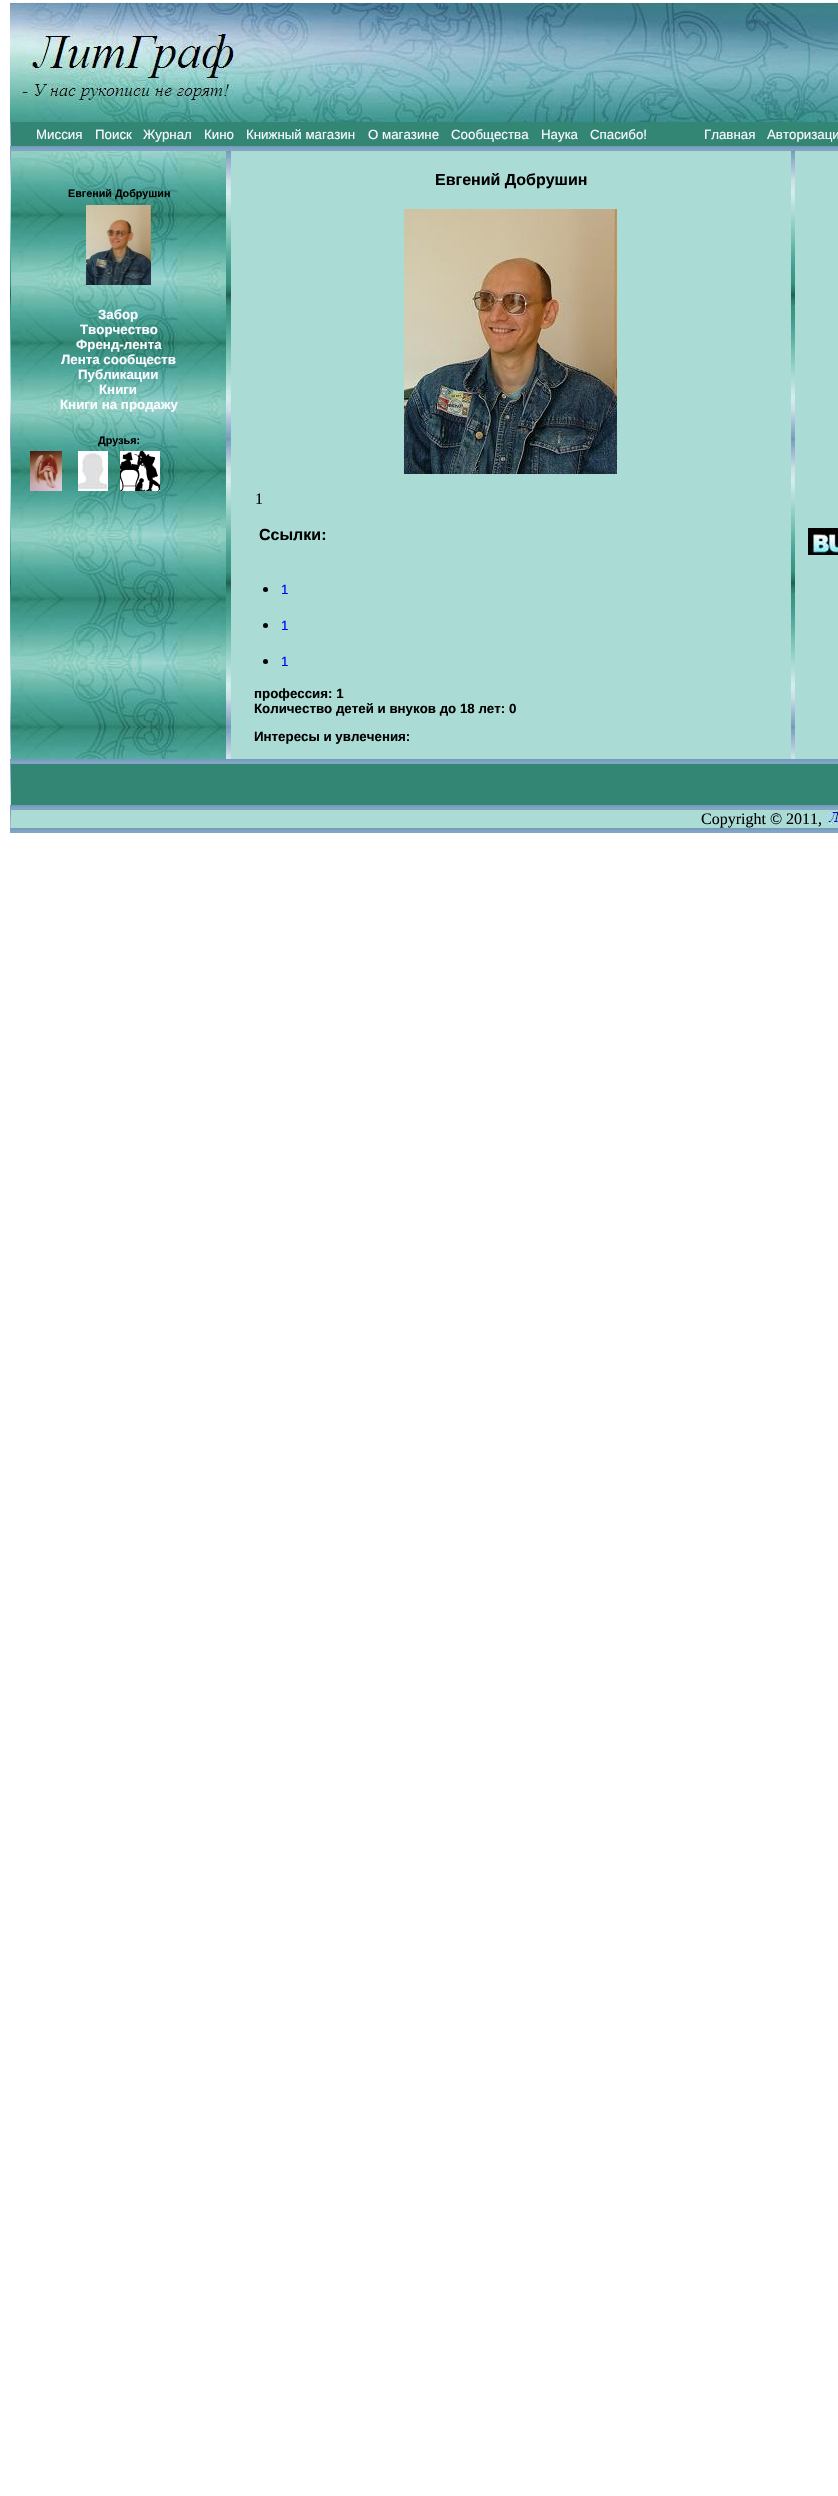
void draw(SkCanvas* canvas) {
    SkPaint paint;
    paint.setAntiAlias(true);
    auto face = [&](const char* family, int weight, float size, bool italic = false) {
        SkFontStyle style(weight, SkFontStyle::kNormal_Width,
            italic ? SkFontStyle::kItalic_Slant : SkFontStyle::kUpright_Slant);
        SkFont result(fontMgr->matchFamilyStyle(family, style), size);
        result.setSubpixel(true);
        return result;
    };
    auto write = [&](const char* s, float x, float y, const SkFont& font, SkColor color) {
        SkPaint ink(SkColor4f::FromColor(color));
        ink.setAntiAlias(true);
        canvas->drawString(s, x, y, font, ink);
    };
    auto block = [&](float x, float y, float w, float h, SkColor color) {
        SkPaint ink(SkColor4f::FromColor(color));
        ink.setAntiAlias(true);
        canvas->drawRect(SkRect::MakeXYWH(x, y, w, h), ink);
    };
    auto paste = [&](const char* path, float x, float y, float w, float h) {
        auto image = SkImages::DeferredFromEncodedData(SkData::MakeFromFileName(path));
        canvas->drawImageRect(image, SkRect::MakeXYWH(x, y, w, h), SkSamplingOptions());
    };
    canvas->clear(SK_ColorWHITE);
    paste("pic1.png", 10, 2, 828, 120);
    paste("pic2.png", 10, 122, 1, 24);
    block(11, 122, 827, 24, SkColorSetRGB(51, 134, 116));
    auto kFont1 = face("Liberation Sans", 400, 13.3f);
    write("Миссия", 36, 139, kFont1, SkColorSetRGB(250, 250, 255));
    write("Поиск", 95, 139, kFont1, SkColorSetRGB(250, 250, 255));
    write("Журнал", 143, 139, kFont1, SkColorSetRGB(250, 250, 255));
    write("Кино", 204, 139, kFont1, SkColorSetRGB(250, 250, 255));
    write("Книжный магазин", 246, 139, kFont1, SkColorSetRGB(250, 250, 255));
    write("О магазине", 368, 139, kFont1, SkColorSetRGB(250, 250, 255));
    write("Сообщества", 451, 139, kFont1, SkColorSetRGB(250, 250, 255));
    write("Наука", 541, 139, kFont1, SkColorSetRGB(250, 250, 255));
    write("Спасибо!", 590, 139, kFont1, SkColorSetRGB(250, 250, 255));
    write("Главная", 704, 139, kFont1, SkColorSetRGB(250, 250, 255));
    write("Авторизаци", 767, 139, kFont1, SkColorSetRGB(250, 250, 255));
    paste("pic3.png", 10, 146, 1, 5);
    paste("pic4.png", 11, 146, 827, 5);
    paste("pic5.png", 10, 151, 1, 608);
    paste("pic6.png", 11, 151, 6, 608);
    paste("pic7.png", 221, 151, 5, 608);
    paste("pic8.png", 226, 151, 5, 608);
    block(231, 151, 560, 608, SkColorSetRGB(170, 219, 213));
    paste("pic9.png", 791, 151, 4, 608);
    block(795, 151, 43, 608, SkColorSetRGB(170, 219, 213));
    paste("pic10.png", 17, 151, 204, 608);
    auto kFont2 = face("Liberation Sans", 700, 10.75f);
    write("Евгений Добрушин", 68, 197, kFont2, SK_ColorBLACK);
    paste("pic11.png", 86, 205, 65, 80);
    auto kFont3 = face("Liberation Sans", 700, 13.3f);
    write("Забор", 98, 319, kFont3, SkColorSetRGB(250, 250, 255));
    write("Творчество", 80, 334, kFont3, SkColorSetRGB(250, 250, 255));
    write("Френд-лента", 76, 349, kFont3, SkColorSetRGB(250, 250, 255));
    write("Лента сообществ", 61, 364, kFont3, SkColorSetRGB(250, 250, 255));
    write("Публикации", 78, 379, kFont3, SkColorSetRGB(250, 250, 255));
    write("Книги", 99, 394, kFont3, SkColorSetRGB(250, 250, 255));
    write("Книги на продажу", 60, 409, kFont3, SkColorSetRGB(250, 250, 255));
    write("Друзья:", 98, 444, kFont2, SK_ColorBLACK);
    paste("pic12.png", 30, 451, 32, 40);
    paste("pic13.png", 78, 451, 30, 40);
    paste("pic14.png", 120, 451, 40, 40);
    auto kFont4 = face("Liberation Sans", 700, 16);
    write("Евгений Добрушин", 435, 185, kFont4, SK_ColorBLACK);
    paste("pic15.png", 404, 209, 213, 265);
    auto kFont5 = face("Liberation Serif", 400, 16);
    write("1", 255, 504, kFont5, SK_ColorBLACK);
    write("Ссылки:", 259, 540, kFont4, SK_ColorBLACK);
    paint.setColor(SK_ColorBLACK);
    canvas->drawCircle(265.5f, 589.5f, 2.5f, paint);
    write("1", 281, 594, kFont1, SkColorSetRGB(0, 0, 255));
    canvas->drawCircle(265.5f, 625.5f, 2.5f, paint);
    write("1", 281, 630, kFont1, SkColorSetRGB(0, 0, 255));
    canvas->drawCircle(265.5f, 661.5f, 2.5f, paint);
    write("1", 281, 666, kFont1, SkColorSetRGB(0, 0, 255));
    write("профессия: 1", 254, 698, kFont3, SK_ColorBLACK);
    write("Количество детей и внуков до 18 лет: 0", 254, 713, kFont3, SK_ColorBLACK);
    write("Интересы и увлечения:", 254, 741, kFont3, SK_ColorBLACK);
    paste("pic16.png", 808, 528, 30, 27);
    paste("pic3.png", 10, 759, 1, 5);
    paste("pic4.png", 11, 759, 827, 5);
    paste("pic17.png", 10, 764, 1, 41);
    block(11, 764, 827, 41, SkColorSetRGB(51, 134, 116));
    paste("pic3.png", 10, 805, 1, 5);
    paste("pic4.png", 11, 805, 827, 5);
    paste("pic18.png", 10, 810, 1, 18);
    block(11, 810, 827, 18, SkColorSetRGB(170, 219, 213));
    write("Copyright © 2011,", 701, 824, kFont5, SK_ColorBLACK);
    paste("pic19.png", 826, 810, 12, 14);
    paste("pic3.png", 10, 828, 1, 5);
    paste("pic4.png", 11, 828, 827, 5);
}
